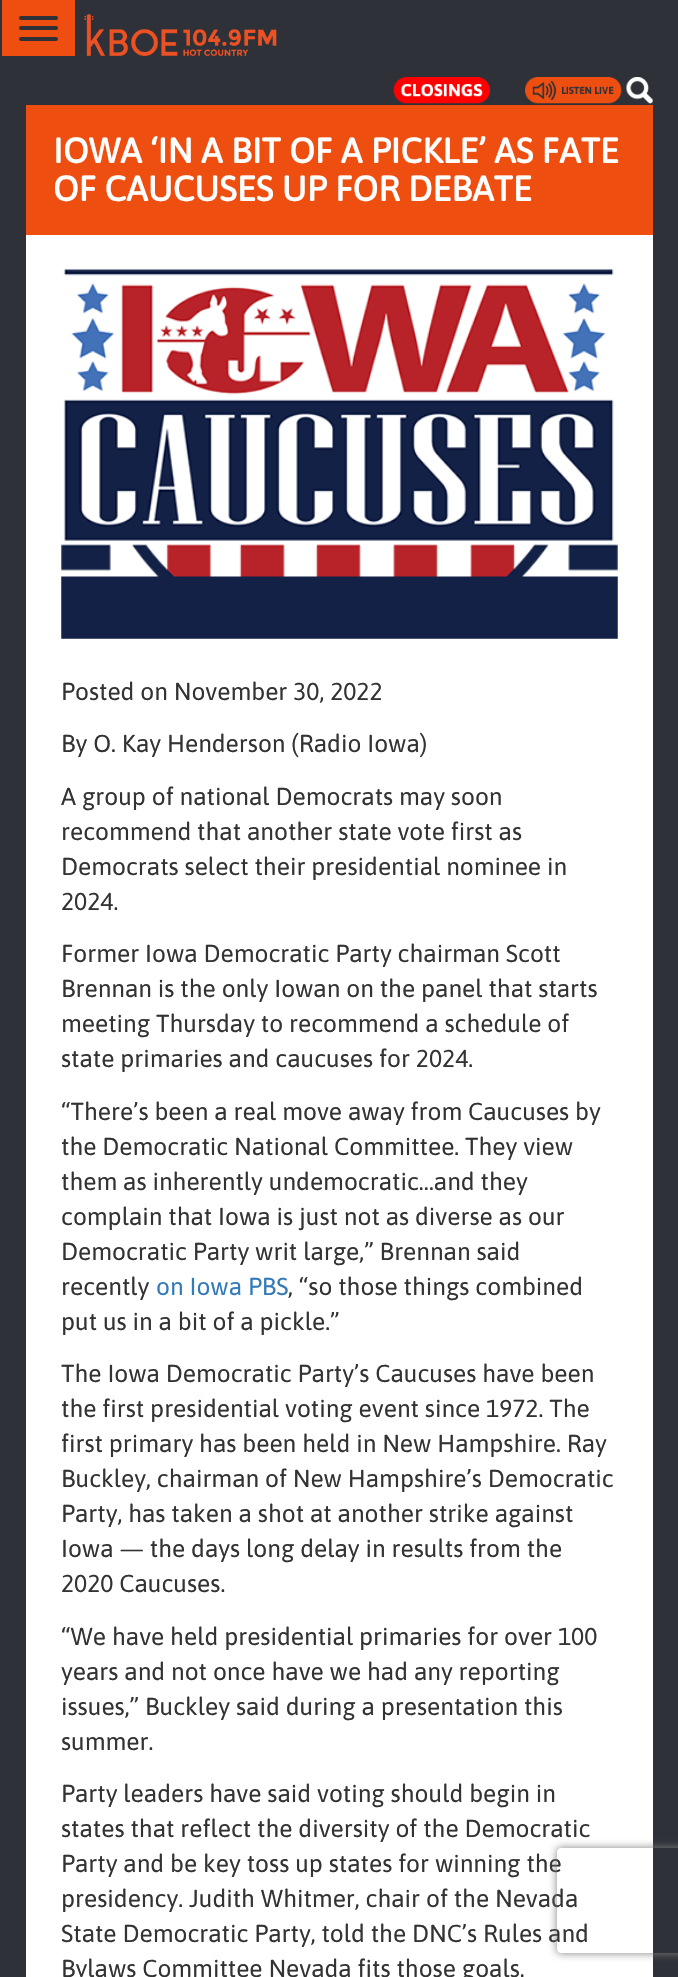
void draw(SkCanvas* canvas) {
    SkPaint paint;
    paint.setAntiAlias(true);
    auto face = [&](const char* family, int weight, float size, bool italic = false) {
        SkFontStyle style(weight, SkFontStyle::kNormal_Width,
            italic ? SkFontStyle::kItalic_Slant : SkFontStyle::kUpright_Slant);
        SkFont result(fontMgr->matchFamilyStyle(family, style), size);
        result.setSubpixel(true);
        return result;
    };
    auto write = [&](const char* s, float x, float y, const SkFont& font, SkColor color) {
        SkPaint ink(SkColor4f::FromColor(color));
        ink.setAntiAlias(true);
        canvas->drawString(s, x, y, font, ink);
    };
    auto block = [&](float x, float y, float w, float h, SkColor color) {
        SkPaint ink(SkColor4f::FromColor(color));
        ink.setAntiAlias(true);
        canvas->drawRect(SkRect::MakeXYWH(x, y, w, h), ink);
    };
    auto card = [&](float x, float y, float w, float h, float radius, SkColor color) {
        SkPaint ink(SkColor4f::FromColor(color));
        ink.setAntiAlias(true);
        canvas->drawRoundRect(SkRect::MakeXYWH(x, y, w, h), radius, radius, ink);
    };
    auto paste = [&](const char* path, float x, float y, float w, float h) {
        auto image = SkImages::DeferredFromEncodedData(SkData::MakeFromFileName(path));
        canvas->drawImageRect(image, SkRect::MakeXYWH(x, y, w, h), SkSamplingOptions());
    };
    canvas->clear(SkColorSetRGB(46, 49, 56));
    block(2, 0, 73, 56, SkColorSetRGB(238, 78, 16));
    card(19, 16, 39, 4, 2, SkColorSetRGB(46, 49, 56));
    card(19, 26, 39, 4, 2, SkColorSetRGB(46, 49, 56));
    card(19, 37, 39, 4, 2, SkColorSetRGB(46, 49, 56));
    paste("pic1.png", 84, 14, 193, 42);
    paste("pic2.png", 393, 77, 97, 27);
    paste("pic3.png", 525, 77, 97, 27);
    paste("pic4.png", 626, 77, 27, 27);
    block(26, 105, 627, 130, SkColorSetRGB(238, 78, 16));
    auto kFont1 = face("Asap", 700, 35);
    write("IOWA ‘IN A BIT OF A PICKLE’ AS FATE", 53, 163, kFont1, SK_ColorWHITE);
    write("OF CAUCUSES UP FOR DEBATE", 53, 201, kFont1, SK_ColorWHITE);
    block(26, 235, 627, 1742, SK_ColorWHITE);
    paste("pic5.png", 61, 269, 557, 370);
    auto kFont2 = face("Asap", 400, 24.5f);
    write("Posted on November 30, 2022", 61, 700, kFont2, SkColorSetRGB(51, 51, 51));
    write("By O. Kay Henderson (Radio Iowa)", 61, 752, kFont2, SkColorSetRGB(51, 51, 51));
    write("A group of national Democrats may soon", 61, 805, kFont2, SkColorSetRGB(51, 51, 51));
    write("recommend that another state vote first as", 61, 840, kFont2, SkColorSetRGB(51, 51, 51));
    write("Democrats select their presidential nominee in", 61, 875, kFont2, SkColorSetRGB(51, 51, 51));
    write("2024.", 61, 910, kFont2, SkColorSetRGB(51, 51, 51));
    write("Former Iowa Democratic Party chairman Scott", 61, 962, kFont2, SkColorSetRGB(51, 51, 51));
    write("Brennan is the only Iowan on the panel that starts", 61, 997, kFont2, SkColorSetRGB(51, 51, 51));
    write("meeting Thursday to recommend a schedule of", 61, 1032, kFont2, SkColorSetRGB(51, 51, 51));
    write("state primaries and caucuses for 2024.", 61, 1067, kFont2, SkColorSetRGB(51, 51, 51));
    write("“There’s been a real move away from Caucuses by", 61, 1120, kFont2, SkColorSetRGB(51, 51, 51));
    write("the Democratic National Committee. They view", 61, 1155, kFont2, SkColorSetRGB(51, 51, 51));
    write("them as inherently undemocratic…and they", 61, 1190, kFont2, SkColorSetRGB(51, 51, 51));
    write("complain that Iowa is just not as diverse as our", 61, 1225, kFont2, SkColorSetRGB(51, 51, 51));
    write("Democratic Party writ large,” Brennan said", 61, 1260, kFont2, SkColorSetRGB(51, 51, 51));
    write("recently", 61, 1295, kFont2, SkColorSetRGB(51, 51, 51));
    write("on Iowa PBS", 156, 1295, kFont2, SkColorSetRGB(51, 122, 183));
    write(", “so those things combined", 288, 1295, kFont2, SkColorSetRGB(51, 51, 51));
    write("put us in a bit of a pickle.”", 61, 1330, kFont2, SkColorSetRGB(51, 51, 51));
    write("The Iowa Democratic Party’s Caucuses have been", 61, 1382, kFont2, SkColorSetRGB(51, 51, 51));
    write("the first presidential voting event since 1972. The", 61, 1417, kFont2, SkColorSetRGB(51, 51, 51));
    write("first primary has been held in New Hampshire. Ray", 61, 1452, kFont2, SkColorSetRGB(51, 51, 51));
    write("Buckley, chairman of New Hampshire’s Democratic", 61, 1487, kFont2, SkColorSetRGB(51, 51, 51));
    write("Party, has taken a shot at another strike against", 61, 1522, kFont2, SkColorSetRGB(51, 51, 51));
    write("Iowa — the days long delay in results from the", 61, 1557, kFont2, SkColorSetRGB(51, 51, 51));
    write("2020 Caucuses.", 61, 1592, kFont2, SkColorSetRGB(51, 51, 51));
    write("“We have held presidential primaries for over 100", 61, 1645, kFont2, SkColorSetRGB(51, 51, 51));
    write("years and not once have we had any reporting", 61, 1680, kFont2, SkColorSetRGB(51, 51, 51));
    write("issues,” Buckley said during a presentation this", 61, 1715, kFont2, SkColorSetRGB(51, 51, 51));
    write("summer.", 61, 1750, kFont2, SkColorSetRGB(51, 51, 51));
    write("Party leaders have said voting should begin in", 61, 1802, kFont2, SkColorSetRGB(51, 51, 51));
    write("states that reflect the diversity of the Democratic", 61, 1837, kFont2, SkColorSetRGB(51, 51, 51));
    write("Party and be key toss up states for winning the", 61, 1872, kFont2, SkColorSetRGB(51, 51, 51));
    write("presidency. Judith Whitmer, chair of the Nevada", 61, 1907, kFont2, SkColorSetRGB(51, 51, 51));
    write("State Democratic Party, told the DNC’s Rules and", 61, 1942, kFont2, SkColorSetRGB(51, 51, 51));
    write("Bylaws Committee Nevada fits those goals.", 61, 1977, kFont2, SkColorSetRGB(51, 51, 51));
    canvas->save();
    canvas->clipPath(SkPathBuilder(SkPathFillType::kEvenOdd).moveTo(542, 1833).lineTo(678, 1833).lineTo(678, 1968).lineTo(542, 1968).close().moveTo(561, 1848).lineTo(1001, 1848).cubicTo(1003, 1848, 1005, 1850, 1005, 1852).lineTo(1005, 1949).cubicTo(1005, 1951, 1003, 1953, 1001, 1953).lineTo(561, 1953).cubicTo(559, 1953, 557, 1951, 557, 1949).lineTo(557, 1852).cubicTo(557, 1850, 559, 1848, 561, 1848).close().detach(), true);
    paint.setColor(SkColorSetRGB(128, 128, 128));
    paint.setMaskFilter(SkMaskFilter::MakeBlur(kNormal_SkBlurStyle, 4.5f));
    canvas->drawRoundRect(SkRect::MakeXYWH(557, 1848, 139, 105), 4, 4, paint);
    paint.setMaskFilter(nullptr);
    canvas->restore();
}
